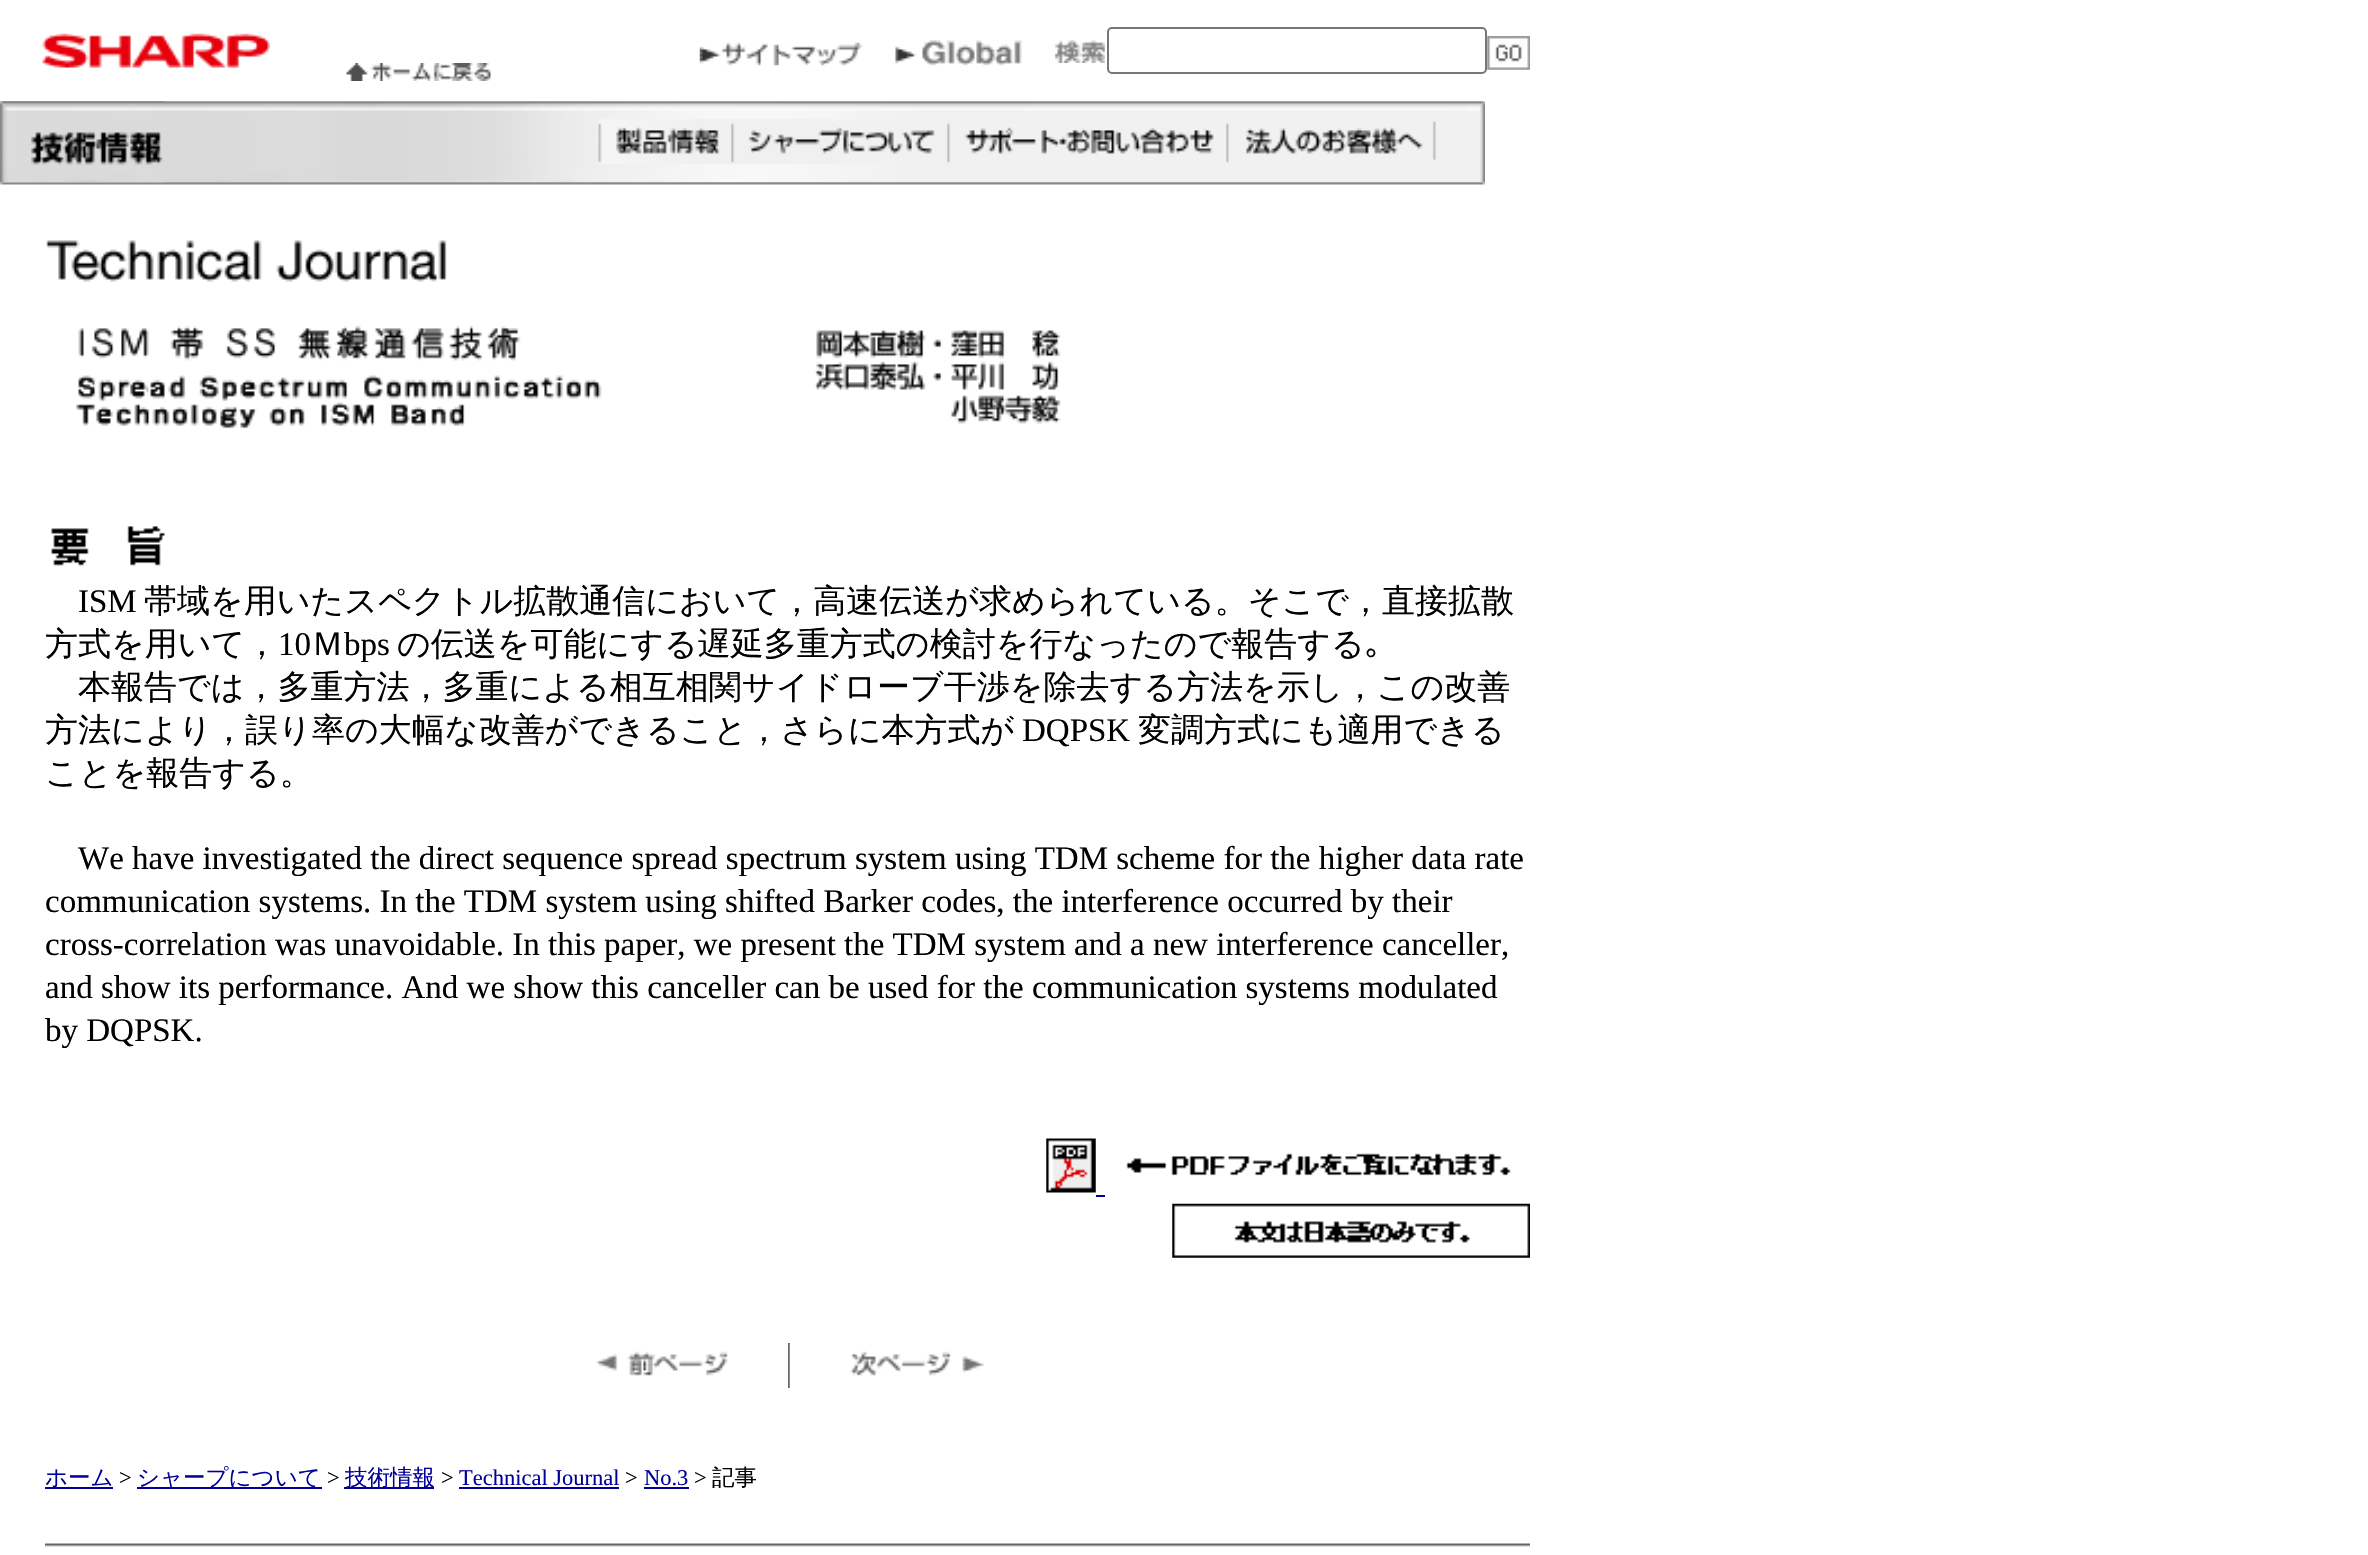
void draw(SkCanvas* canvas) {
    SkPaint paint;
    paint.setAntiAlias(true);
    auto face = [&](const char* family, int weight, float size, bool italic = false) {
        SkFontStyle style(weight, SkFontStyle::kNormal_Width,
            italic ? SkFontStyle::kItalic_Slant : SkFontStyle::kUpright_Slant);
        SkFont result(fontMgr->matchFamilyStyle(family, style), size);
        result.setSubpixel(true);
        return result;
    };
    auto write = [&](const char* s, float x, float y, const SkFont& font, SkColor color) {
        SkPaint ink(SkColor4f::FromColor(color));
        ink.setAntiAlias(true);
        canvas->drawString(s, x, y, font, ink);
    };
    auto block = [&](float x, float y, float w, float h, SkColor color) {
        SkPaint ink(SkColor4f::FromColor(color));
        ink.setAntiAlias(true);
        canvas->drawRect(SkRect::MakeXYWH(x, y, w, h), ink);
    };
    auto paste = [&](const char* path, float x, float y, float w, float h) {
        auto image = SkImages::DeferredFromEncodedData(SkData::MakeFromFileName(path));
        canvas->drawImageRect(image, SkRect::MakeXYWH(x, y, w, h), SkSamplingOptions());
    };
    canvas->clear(SK_ColorWHITE);
    paste("pic1.png", 42, 33, 228, 35);
    paste("pic2.png", 699, 42, 163, 24);
    paste("pic3.png", 895, 40, 127, 26);
    paste("pic4.png", 1055, 40, 50, 23);
    paint.setStyle(SkPaint::kStroke_Style);
    paint.setStrokeWidth(2);
    paint.setColor(SkColorSetRGB(118, 118, 118));
    canvas->drawRoundRect(SkRect::MakeXYWH(1108, 28, 378, 45), 4, 4, paint);
    paste("pic5.png", 1487, 36, 43, 34);
    paste("pic6.png", 346, 63, 145, 18);
    paste("pic7.png", 0, 101, 1485, 82);
    paste("pic13.png", 0, 182, 1485, 3);
    paste("pic8.png", 0, 101, 165, 82);
    paste("pic9.png", 598, 119, 133, 45);
    paste("pic10.png", 731, 119, 204, 45);
    paste("pic11.png", 947, 123, 267, 40);
    paste("pic12.png", 1226, 121, 210, 42);
    paste("pic14.png", 46, 240, 401, 42);
    paste("pic15.png", 76, 325, 985, 104);
    paste("pic16.png", 51, 526, 114, 40);
    auto kFont1 = face("Liberation Serif", 400, 33);
    write("ISM", 78, 612, kFont1, SK_ColorBLACK);
    auto kFont2 = face("WenQuanYi Zen Hei", 500, 33);
    write("帯域を用いたスペクトル拡散通信において，高速伝送が求められている。そこで，直接拡散", 144, 612, kFont2, SK_ColorBLACK);
    write("方式を用いて，", 45, 655, kFont2, SK_ColorBLACK);
    write("10", 278, 655, kFont1, SK_ColorBLACK);
    write("Ｍ", 311, 655, kFont2, SK_ColorBLACK);
    write("bps", 344, 655, kFont1, SK_ColorBLACK);
    write("の伝送を可能にする遅延多重方式の検討を行なったので報告する", 397, 655, kFont2, SK_ColorBLACK);
    auto kFont3 = face("IPAPGothic", 400, 33);
    write("｡", 1365, 655, kFont3, SK_ColorBLACK);
    write("本報告では，多重方法，多重による相互相関サイドローブ干渉を除去する方法を示し，この改善", 78, 698, kFont2, SK_ColorBLACK);
    write("方法により，誤り率の大幅な改善ができること，さらに本方式が", 45, 741, kFont2, SK_ColorBLACK);
    write("DQPSK", 1022, 741, kFont1, SK_ColorBLACK);
    write("変調方式にも適用できる", 1138, 741, kFont2, SK_ColorBLACK);
    write("ことを報告する。", 45, 784, kFont2, SK_ColorBLACK);
    write("We have investigated the direct sequence spread spectrum system using TDM scheme for the higher data rate", 78, 869, kFont1, SK_ColorBLACK);
    write("communication systems. In the TDM system using shifted Barker codes, the interference occurred by their", 45, 912, kFont1, SK_ColorBLACK);
    write("cross-correlation was unavoidable. In this paper, we present the TDM system and a new interference canceller,", 45, 955, kFont1, SK_ColorBLACK);
    write("and show its performance. And we show this canceller can be used for the communication systems modulated", 45, 998, kFont1, SK_ColorBLACK);
    write("by DQPSK.", 45, 1041, kFont1, SK_ColorBLACK);
    paste("pic17.png", 1046, 1138, 50, 55);
    paste("pic18.png", 1126, 1153, 385, 23);
    block(1096, 1195, 9, 2, SkColorSetRGB(0, 0, 153));
    paste("pic19.png", 1172, 1203, 358, 55);
    block(788, 1343, 2, 45, SkColorSetRGB(102, 102, 102));
    paste("pic20.png", 596, 1351, 132, 25);
    paste("pic21.png", 789, 1343, 195, 45);
    block(45, 1487, 68, 2, SkColorSetRGB(0, 0, 153));
    auto kFont4 = face("WenQuanYi Zen Hei", 500, 22.5f);
    write("ホーム", 45, 1485, kFont4, SkColorSetRGB(0, 0, 153));
    auto kFont5 = face("Liberation Serif", 400, 22.5f);
    write(">", 119, 1485, kFont5, SK_ColorBLACK);
    block(137, 1487, 185, 2, SkColorSetRGB(0, 0, 153));
    write("シャープについて", 137, 1485, kFont4, SkColorSetRGB(0, 0, 153));
    write(">", 327, 1485, kFont5, SK_ColorBLACK);
    block(344, 1487, 90, 2, SkColorSetRGB(0, 0, 153));
    write("技術情報", 345, 1485, kFont4, SkColorSetRGB(0, 0, 153));
    write(">", 441, 1485, kFont5, SK_ColorBLACK);
    write("Technical Journal", 459, 1485, kFont5, SkColorSetRGB(0, 0, 153));
    block(459, 1487, 160, 2, SkColorSetRGB(0, 0, 153));
    write(">", 625, 1485, kFont5, SK_ColorBLACK);
    write("No.3", 644, 1485, kFont5, SkColorSetRGB(0, 0, 153));
    block(644, 1487, 45, 2, SkColorSetRGB(0, 0, 153));
    write(">", 694, 1485, kFont5, SK_ColorBLACK);
    write("記事", 712, 1485, kFont4, SK_ColorBLACK);
    paste("pic22.png", 45, 1543, 1485, 4);
}
